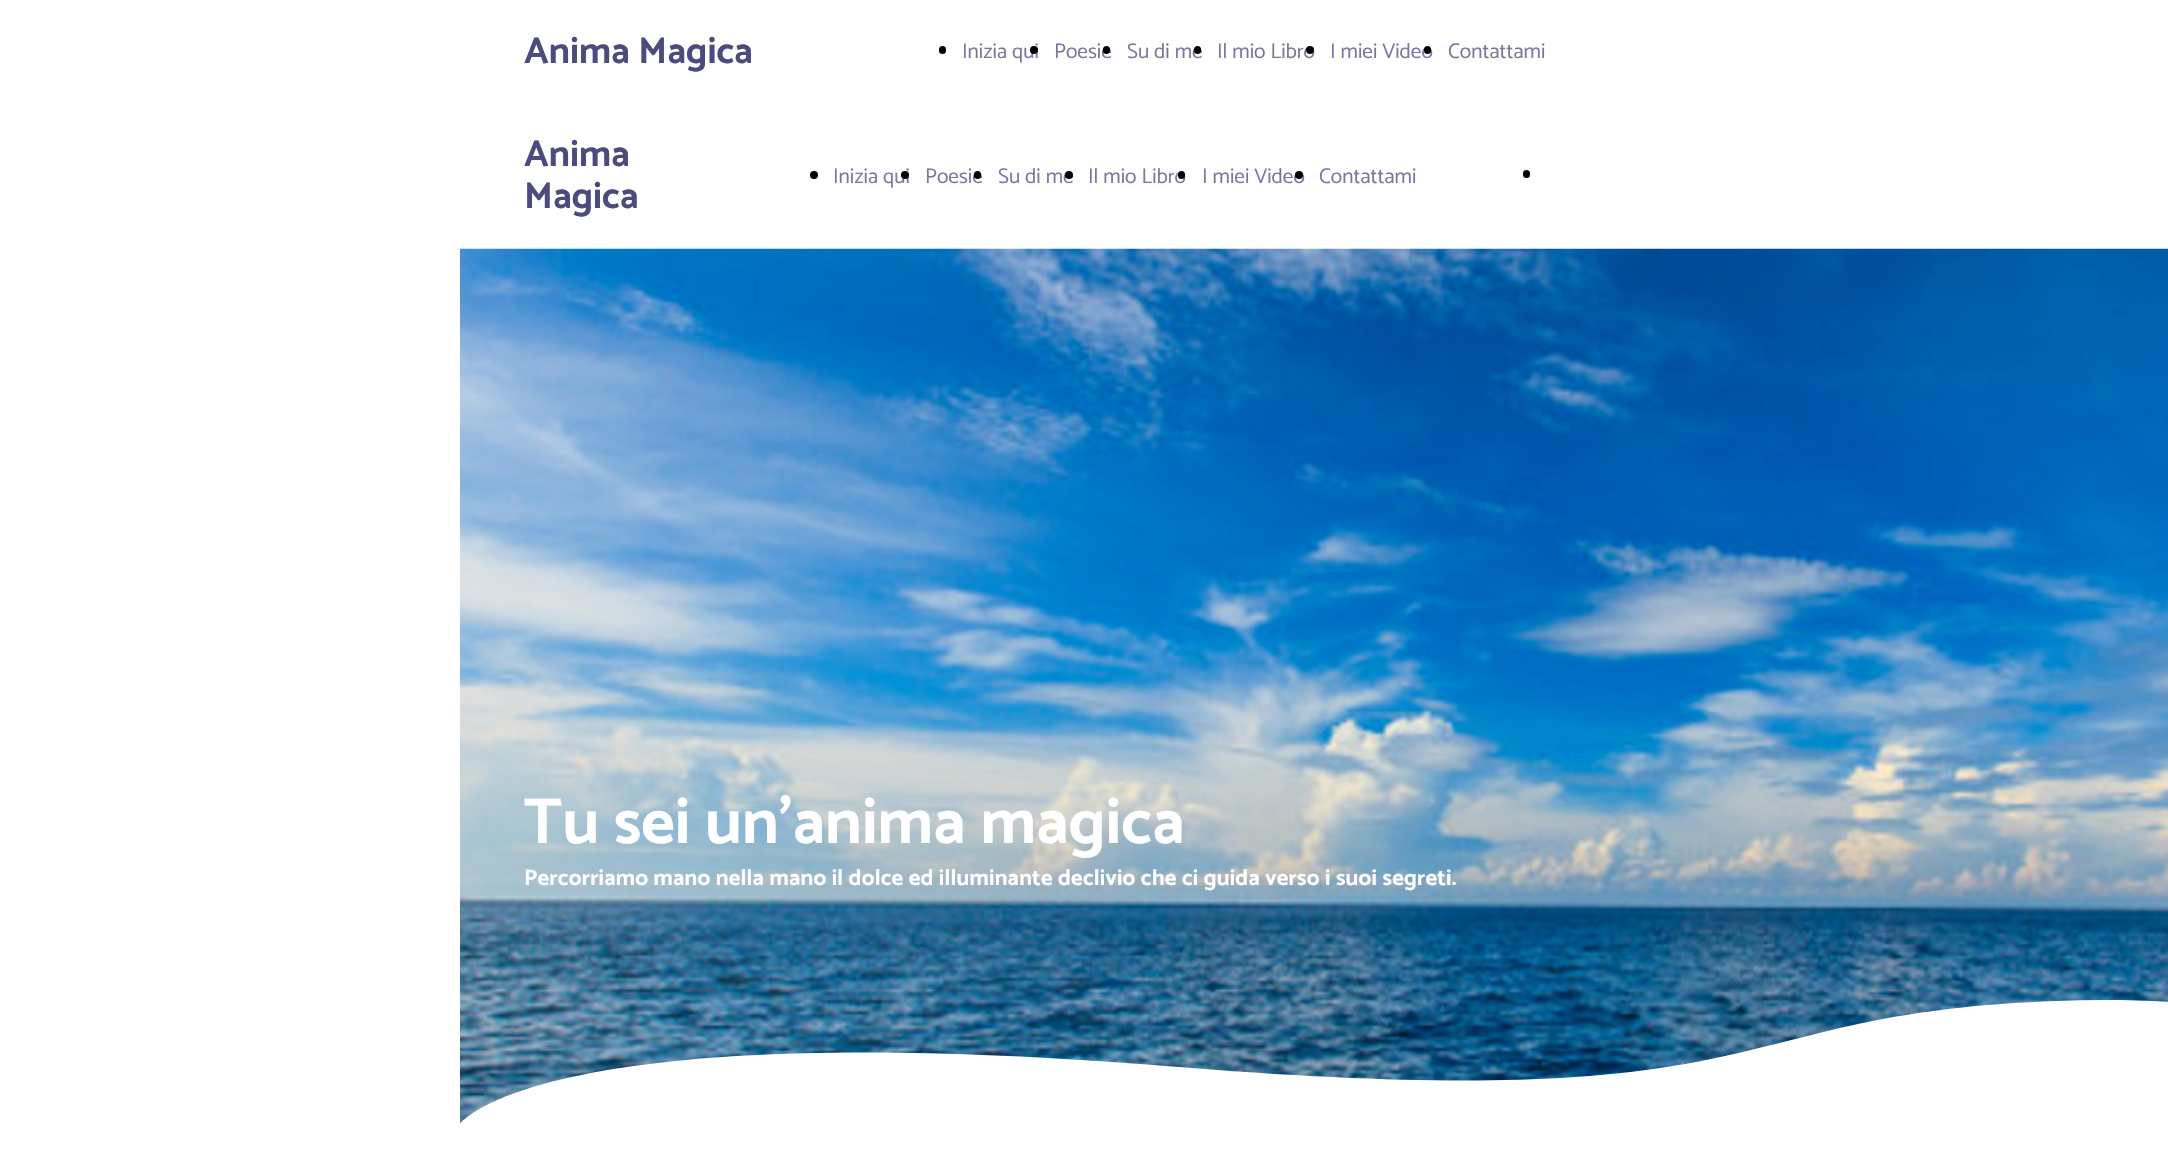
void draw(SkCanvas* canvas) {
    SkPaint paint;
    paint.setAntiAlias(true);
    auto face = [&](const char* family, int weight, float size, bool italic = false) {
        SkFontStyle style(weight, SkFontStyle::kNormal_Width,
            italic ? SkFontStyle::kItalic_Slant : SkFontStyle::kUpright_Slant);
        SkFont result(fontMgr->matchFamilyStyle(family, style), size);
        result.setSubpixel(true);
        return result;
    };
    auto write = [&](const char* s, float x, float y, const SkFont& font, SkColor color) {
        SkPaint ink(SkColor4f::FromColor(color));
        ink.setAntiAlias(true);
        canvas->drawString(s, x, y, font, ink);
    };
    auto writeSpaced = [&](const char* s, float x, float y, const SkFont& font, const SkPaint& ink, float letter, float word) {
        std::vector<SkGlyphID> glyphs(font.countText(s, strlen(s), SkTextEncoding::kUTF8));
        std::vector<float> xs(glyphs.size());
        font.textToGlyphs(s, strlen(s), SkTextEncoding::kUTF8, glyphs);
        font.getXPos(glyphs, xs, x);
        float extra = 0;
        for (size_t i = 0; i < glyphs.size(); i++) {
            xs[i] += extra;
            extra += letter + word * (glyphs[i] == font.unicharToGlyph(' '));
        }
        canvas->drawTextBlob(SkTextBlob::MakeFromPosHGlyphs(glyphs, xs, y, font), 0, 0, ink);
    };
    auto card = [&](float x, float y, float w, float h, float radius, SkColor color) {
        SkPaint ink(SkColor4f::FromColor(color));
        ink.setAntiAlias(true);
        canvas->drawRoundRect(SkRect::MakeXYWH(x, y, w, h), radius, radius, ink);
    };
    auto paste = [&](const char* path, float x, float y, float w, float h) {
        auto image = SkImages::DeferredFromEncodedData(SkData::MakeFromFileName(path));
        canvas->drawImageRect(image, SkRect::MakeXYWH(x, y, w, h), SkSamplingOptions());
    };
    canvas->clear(SK_ColorWHITE);
    auto kFont1 = face("Catamaran", 700, 37.5f);
    write("Anima Magica", 524, 63, kFont1, SkColorSetRGB(75, 75, 126));
    card(939, 46, 7, 8, 3.5f, SK_ColorBLACK);
    auto kFont2 = face("Catamaran", 400, 21.25f);
    write("Inizia qui", 962, 58, kFont2, SkColorSetRGB(120, 120, 158));
    paint.setColor(SK_ColorBLACK);
    canvas->drawCircle(1034, 50, 4, paint);
    write("Poesie", 1054, 58, kFont2, SkColorSetRGB(120, 120, 158));
    card(1103, 46, 7, 8, 3.5f, SK_ColorBLACK);
    write("Su di me", 1127, 58, kFont2, SkColorSetRGB(120, 120, 158));
    card(1194, 46, 7, 8, 3.5f, SK_ColorBLACK);
    write("Il mio Libro", 1217, 58, kFont2, SkColorSetRGB(120, 120, 158));
    canvas->drawCircle(1310, 50, 4, paint);
    write("I miei Video", 1330, 58, kFont2, SkColorSetRGB(120, 120, 158));
    card(1424, 46, 7, 8, 3.5f, SK_ColorBLACK);
    write("Contattami", 1448, 58, kFont2, SkColorSetRGB(120, 120, 158));
    write("Anima", 524, 166, kFont1, SkColorSetRGB(75, 75, 126));
    write("Magica", 524, 208, kFont1, SkColorSetRGB(75, 75, 126));
    canvas->drawCircle(814, 175, 4, paint);
    write("Inizia qui", 833, 183, kFont2, SkColorSetRGB(120, 120, 158));
    canvas->drawCircle(905, 175, 4, paint);
    write("Poesie", 925, 183, kFont2, SkColorSetRGB(120, 120, 158));
    card(974, 171, 7, 8, 3.5f, SK_ColorBLACK);
    write("Su di me", 998, 183, kFont2, SkColorSetRGB(120, 120, 158));
    canvas->drawCircle(1069, 175, 4, paint);
    write("Il mio Libro", 1088, 183, kFont2, SkColorSetRGB(120, 120, 158));
    card(1178, 171, 7, 8, 3.5f, SK_ColorBLACK);
    write("I miei Video", 1202, 183, kFont2, SkColorSetRGB(120, 120, 158));
    canvas->drawCircle(1299, 175, 4, paint);
    write("Contattami", 1319, 183, kFont2, SkColorSetRGB(120, 120, 158));
    card(1523, 170, 7, 8, 3.5f, SK_ColorBLACK);
    paste("pic1.png", 460, 248, 1708, 876);
    auto kFont3 = face("Catamaran", 700, 65);
    write("Tu sei un'anima magica", 524, 843, kFont3, SK_ColorWHITE);
    auto kFont4 = face("Catamaran", 700, 22.5f);
    paint.setColor(SK_ColorWHITE);
    writeSpaced("Percorriamo mano nella mano il dolce ed illuminante declivio che ci guida verso i suoi segreti.", 524, 885, kFont4, paint, 0.22f, 0);
    canvas->drawPath(SkPathBuilder().moveTo(460, 1124).lineTo(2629, 1124).cubicTo(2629, 1124, 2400, 987, 2055, 1001).cubicTo(1709, 1014, 1795, 1118, 1166, 1066).cubicTo(536, 1015, 460, 1124, 460, 1124).close().detach(), paint);
}
